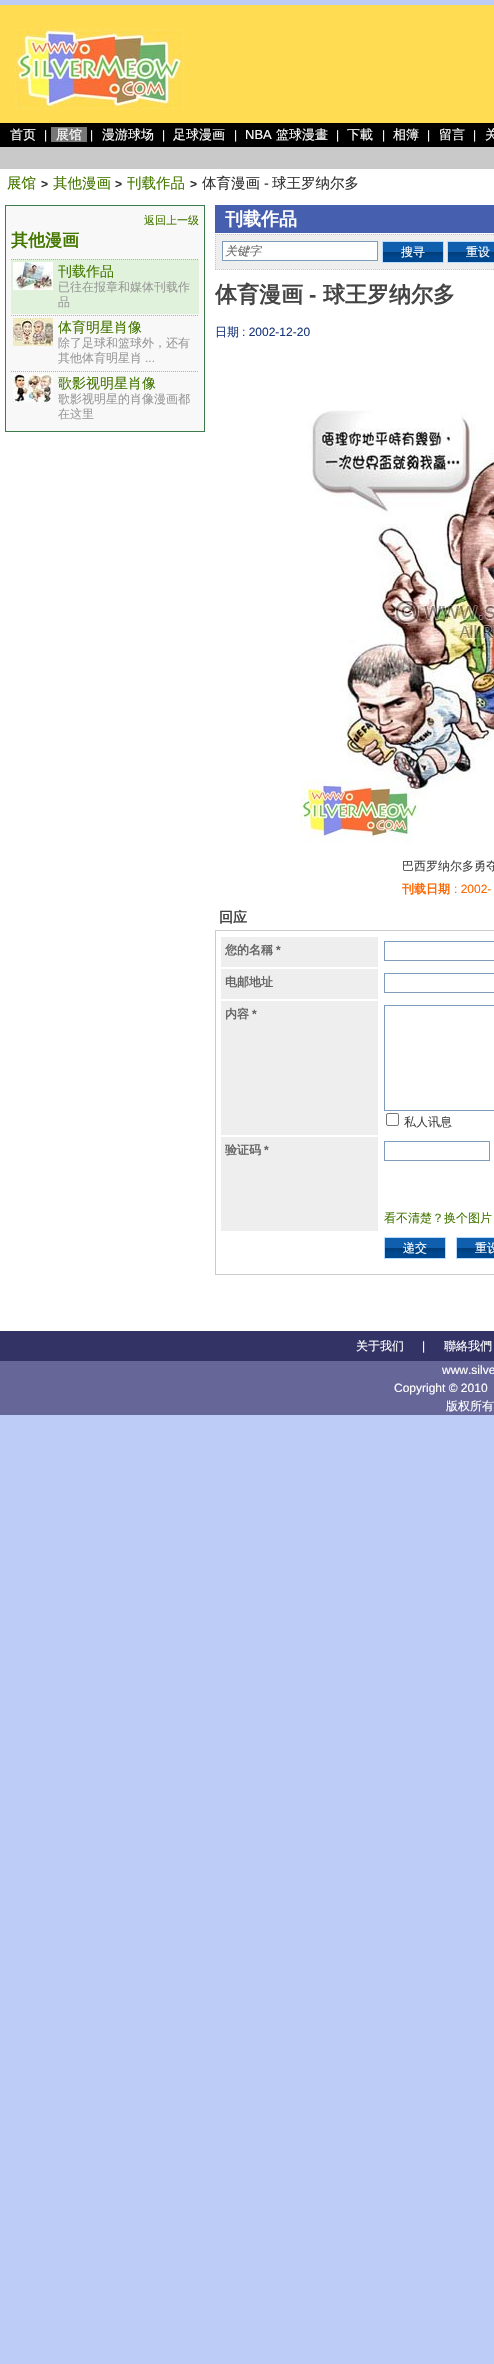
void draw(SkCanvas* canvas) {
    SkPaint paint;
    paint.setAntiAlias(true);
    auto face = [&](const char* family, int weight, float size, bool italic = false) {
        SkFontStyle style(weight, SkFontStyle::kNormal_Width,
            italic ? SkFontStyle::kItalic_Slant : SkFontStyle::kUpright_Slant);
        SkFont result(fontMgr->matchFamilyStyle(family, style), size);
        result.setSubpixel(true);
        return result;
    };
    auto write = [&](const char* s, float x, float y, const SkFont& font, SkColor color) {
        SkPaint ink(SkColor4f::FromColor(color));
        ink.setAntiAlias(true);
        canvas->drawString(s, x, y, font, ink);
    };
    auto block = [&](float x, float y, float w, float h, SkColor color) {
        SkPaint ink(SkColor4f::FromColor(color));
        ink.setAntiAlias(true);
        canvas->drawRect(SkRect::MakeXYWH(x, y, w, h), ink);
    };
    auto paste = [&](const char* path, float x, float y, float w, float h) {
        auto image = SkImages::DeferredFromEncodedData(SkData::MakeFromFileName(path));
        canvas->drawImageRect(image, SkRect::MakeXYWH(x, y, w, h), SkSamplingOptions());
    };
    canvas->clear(SkColorSetRGB(188, 204, 247));
    block(0, 5, 494, 118, SkColorSetRGB(255, 220, 82));
    paste("pic1.png", 15, 29, 169, 80);
    block(0, 123, 494, 24, SK_ColorBLACK);
    auto kFont1 = face("WenQuanYi Zen Hei", 500, 13);
    write("首页", 10, 139, kFont1, SK_ColorWHITE);
    auto kFont2 = face("Liberation Sans", 400, 12);
    write("|", 44, 139, kFont2, SK_ColorWHITE);
    block(51, 127, 36, 15, SkColorSetRGB(119, 119, 119));
    write("展馆", 56, 139, kFont1, SK_ColorWHITE);
    write("|", 90, 139, kFont2, SK_ColorWHITE);
    write("漫游球场", 102, 139, kFont1, SK_ColorWHITE);
    write("|", 162, 139, kFont2, SK_ColorWHITE);
    write("足球漫画", 173, 139, kFont1, SK_ColorWHITE);
    write("|", 234, 139, kFont2, SK_ColorWHITE);
    auto kFont3 = face("Liberation Sans", 400, 13);
    write("NBA", 245, 139, kFont3, SK_ColorWHITE);
    write("篮球漫畫", 276, 139, kFont1, SK_ColorWHITE);
    write("|", 336, 139, kFont2, SK_ColorWHITE);
    write("下載", 347, 139, kFont1, SK_ColorWHITE);
    write("|", 382, 139, kFont2, SK_ColorWHITE);
    write("相簿", 393, 139, kFont1, SK_ColorWHITE);
    write("|", 427, 139, kFont2, SK_ColorWHITE);
    write("留言", 439, 139, kFont1, SK_ColorWHITE);
    write("|", 473, 139, kFont2, SK_ColorWHITE);
    write("关", 485, 139, kFont1, SK_ColorWHITE);
    block(0, 147, 494, 22, SkColorSetRGB(201, 201, 201));
    block(0, 169, 494, 1162, SK_ColorWHITE);
    auto kFont4 = face("WenQuanYi Zen Hei", 500, 14.5f);
    write("展馆", 7, 188, kFont4, SkColorSetRGB(68, 119, 0));
    auto kFont5 = face("Liberation Sans", 700, 12);
    write(">", 41, 188, kFont5, SkColorSetRGB(51, 51, 51));
    write("其他漫画", 53, 188, kFont4, SkColorSetRGB(68, 119, 0));
    write(">", 115, 188, kFont5, SkColorSetRGB(51, 51, 51));
    write("刊载作品", 127, 188, kFont4, SkColorSetRGB(68, 119, 0));
    write(">", 190, 188, kFont5, SkColorSetRGB(51, 51, 51));
    write("体育漫画", 202, 188, kFont4, SkColorSetRGB(51, 51, 51));
    auto kFont6 = face("Liberation Sans", 400, 14.5f);
    write("-", 264, 188, kFont6, SkColorSetRGB(51, 51, 51));
    write("球王罗纳尔多", 272, 188, kFont4, SkColorSetRGB(51, 51, 51));
    paint.setColor(SkColorSetRGB(248, 248, 248));
    canvas->drawRect(SkRect::MakeXYWH(5.5f, 205.5f, 199, 226), paint);
    paint.setStyle(SkPaint::kStroke_Style);
    paint.setStrokeWidth(1);
    paint.setColor(SkColorSetRGB(61, 122, 76));
    canvas->drawRect(SkRect::MakeXYWH(5.5f, 205.5f, 199, 226), paint);
    auto kFont7 = face("WenQuanYi Zen Hei", 500, 11);
    write("返回上一级", 144, 224, kFont7, SkColorSetRGB(68, 119, 0));
    auto kFont8 = face("WenQuanYi Zen Hei", 700, 17);
    write("其他漫画", 11, 246, kFont8, SkColorSetRGB(68, 119, 0));
    block(11, 259, 188, 55, SkColorSetRGB(224, 242, 219));
    paint.setColor(SkColorSetRGB(153, 194, 142));
    paint.setPathEffect(SkDashPathEffect::Make({{1, 1}}, 0));
    canvas->drawPath(SkPathBuilder().moveTo(11, 259.5f).lineTo(199, 259.5f).detach(), paint);
    paint.setPathEffect(nullptr);
    paste("pic2.png", 13, 262, 40, 28);
    auto kFont9 = face("WenQuanYi Zen Hei", 500, 14);
    write("刊载作品", 58, 276, kFont9, SkColorSetRGB(68, 119, 0));
    auto kFont10 = face("WenQuanYi Zen Hei", 500, 12);
    write("已往在报章和媒体刊载作", 58, 291, kFont10, SkColorSetRGB(153, 153, 153));
    write("品", 58, 306, kFont10, SkColorSetRGB(153, 153, 153));
    paint.setPathEffect(SkDashPathEffect::Make({{1, 1}}, 0));
    canvas->drawPath(SkPathBuilder().moveTo(11, 315.5f).lineTo(199, 315.5f).detach(), paint);
    paint.setPathEffect(nullptr);
    paste("pic3.png", 13, 318, 40, 28);
    write("体育明星肖像", 58, 332, kFont9, SkColorSetRGB(68, 119, 0));
    write("除了足球和篮球外，还有", 58, 347, kFont10, SkColorSetRGB(153, 153, 153));
    write("其他体育明星肖", 58, 362, kFont10, SkColorSetRGB(153, 153, 153));
    write("...", 145, 362, kFont2, SkColorSetRGB(153, 153, 153));
    paint.setPathEffect(SkDashPathEffect::Make({{1, 1}}, 0));
    canvas->drawPath(SkPathBuilder().moveTo(11, 371.5f).lineTo(199, 371.5f).detach(), paint);
    paint.setPathEffect(nullptr);
    paste("pic4.png", 13, 374, 40, 28);
    write("歌影视明星肖像", 58, 388, kFont9, SkColorSetRGB(68, 119, 0));
    write("歌影视明星的肖像漫画都", 58, 403, kFont10, SkColorSetRGB(153, 153, 153));
    write("在这里", 58, 418, kFont10, SkColorSetRGB(153, 153, 153));
    block(215, 205, 279, 28, SkColorSetRGB(70, 95, 174));
    auto kFont11 = face("WenQuanYi Zen Hei", 700, 18);
    write("刊载作品", 225, 225, kFont11, SK_ColorWHITE);
    block(215, 234, 279, 36, SkColorSetRGB(238, 238, 238));
    paint.setColor(SkColorSetRGB(204, 204, 204));
    paint.setPathEffect(SkDashPathEffect::Make({{1, 1}}, 0));
    canvas->drawPath(SkPathBuilder().moveTo(215, 234.5f).lineTo(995, 234.5f).detach(), paint);
    paint.setPathEffect(nullptr);
    paint.setPathEffect(SkDashPathEffect::Make({{1, 1}}, 0));
    canvas->drawPath(SkPathBuilder().moveTo(215, 269.5f).lineTo(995, 269.5f).detach(), paint);
    paint.setPathEffect(nullptr);
    paint.setPathEffect(SkDashPathEffect::Make({{1, 1}}, 0));
    canvas->drawPath(SkPathBuilder().moveTo(215.5f, 234).lineTo(215.5f, 270).detach(), paint);
    paint.setPathEffect(nullptr);
    paint.setStyle(SkPaint::kFill_Style);
    paint.setColor(SK_ColorWHITE);
    canvas->drawRect(SkRect::MakeXYWH(222.5f, 241.5f, 155, 19), paint);
    paint.setStyle(SkPaint::kStroke_Style);
    paint.setColor(SkColorSetRGB(127, 157, 185));
    canvas->drawRect(SkRect::MakeXYWH(222.5f, 241.5f, 155, 19), paint);
    auto kFont12 = face("WenQuanYi Zen Hei", 500, 12, true);
    write("关键字", 225, 255, kFont12, SkColorSetRGB(102, 102, 102));
    paste("pic5.png", 383, 242, 60, 20);
    paint.setColor(SkColorSetRGB(184, 220, 255));
    canvas->drawRect(SkRect::MakeXYWH(382.5f, 241.5f, 61, 21), paint);
    write("搜寻", 401, 256, kFont10, SK_ColorWHITE);
    paste("pic6.png", 448, 242, 46, 20);
    canvas->drawRect(SkRect::MakeXYWH(447.5f, 241.5f, 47, 21), paint);
    write("重设", 466, 256, kFont10, SK_ColorWHITE);
    auto kFont13 = face("WenQuanYi Zen Hei", 700, 22);
    write("体育漫画", 215, 302, kFont13, SkColorSetRGB(68, 68, 68));
    auto kFont14 = face("Liberation Sans", 700, 22);
    write("-", 309, 302, kFont14, SkColorSetRGB(68, 68, 68));
    write("球王罗纳尔多", 323, 302, kFont13, SkColorSetRGB(68, 68, 68));
    write("日期", 215, 336, kFont10, SkColorSetRGB(26, 56, 123));
    write(": 2002-12-20", 242, 336, kFont2, SkColorSetRGB(26, 56, 123));
    paste("pic7.png", 300, 410, 194, 434);
    write("巴西罗纳尔多勇夺", 402, 870, kFont10, SkColorSetRGB(68, 68, 68));
    auto kFont15 = face("WenQuanYi Zen Hei", 700, 12);
    write("刊载日期", 402, 893, kFont15, SkColorSetRGB(255, 102, 0));
    write(": 2002-", 454, 893, kFont2, SkColorSetRGB(255, 102, 0));
    auto kFont16 = face("WenQuanYi Zen Hei", 700, 14);
    write("回应", 219, 922, kFont16, SkColorSetRGB(68, 68, 68));
    paint.setColor(SkColorSetRGB(204, 204, 204));
    canvas->drawRect(SkRect::MakeXYWH(215.5f, 930.5f, 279, 344), paint);
    block(221, 937, 157, 30, SkColorSetRGB(238, 238, 238));
    write("您的名稱", 225, 954, kFont15, SkColorSetRGB(102, 102, 102));
    write("*", 276, 954, kFont5, SkColorSetRGB(102, 102, 102));
    paint.setColor(SkColorSetRGB(127, 157, 185));
    canvas->drawRect(SkRect::MakeXYWH(384.5f, 941.5f, 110, 19), paint);
    block(221, 969, 157, 30, SkColorSetRGB(238, 238, 238));
    write("电邮地址", 225, 986, kFont15, SkColorSetRGB(102, 102, 102));
    canvas->drawRect(SkRect::MakeXYWH(384.5f, 973.5f, 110, 19), paint);
    block(221, 1001, 157, 134, SkColorSetRGB(238, 238, 238));
    write("内容", 225, 1018, kFont15, SkColorSetRGB(102, 102, 102));
    write("*", 252, 1018, kFont5, SkColorSetRGB(102, 102, 102));
    canvas->drawRect(SkRect::MakeXYWH(384.5f, 1005.5f, 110, 105), paint);
    paint.setColor(SkColorSetRGB(118, 118, 118));
    canvas->drawRoundRect(SkRect::MakeXYWH(386.5f, 1113.5f, 12, 12), 1.5f, 1.5f, paint);
    write("私人讯息", 404, 1126, kFont10, SkColorSetRGB(68, 68, 68));
    block(221, 1137, 157, 94, SkColorSetRGB(238, 238, 238));
    write("验证码", 225, 1154, kFont15, SkColorSetRGB(102, 102, 102));
    write("*", 264, 1154, kFont5, SkColorSetRGB(102, 102, 102));
    paint.setColor(SkColorSetRGB(127, 157, 185));
    canvas->drawRect(SkRect::MakeXYWH(384.5f, 1141.5f, 105, 19), paint);
    write("看不清楚？换个图片", 384, 1222, kFont10, SkColorSetRGB(68, 119, 0));
    paste("pic5.png", 385, 1238, 60, 20);
    paint.setColor(SkColorSetRGB(184, 220, 255));
    canvas->drawRect(SkRect::MakeXYWH(384.5f, 1237.5f, 61, 21), paint);
    write("递交", 403, 1252, kFont10, SK_ColorWHITE);
    paste("pic8.png", 457, 1238, 37, 20);
    canvas->drawRect(SkRect::MakeXYWH(456.5f, 1237.5f, 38, 21), paint);
    write("重设", 475, 1252, kFont10, SK_ColorWHITE);
    block(0, 1361, 494, 54, SkColorSetRGB(102, 102, 153));
    block(0, 1331, 494, 30, SkColorSetRGB(51, 51, 102));
    write("关于我们", 356, 1350, kFont10, SK_ColorWHITE);
    write("|", 422, 1350, kFont2, SK_ColorWHITE);
    write("聯絡我們", 444, 1350, kFont10, SK_ColorWHITE);
    write("www.silve", 442, 1374, kFont2, SK_ColorWHITE);
    write("Copyright © 2010", 394, 1392, kFont2, SK_ColorWHITE);
    write("版权所有", 446, 1410, kFont10, SK_ColorWHITE);
}
